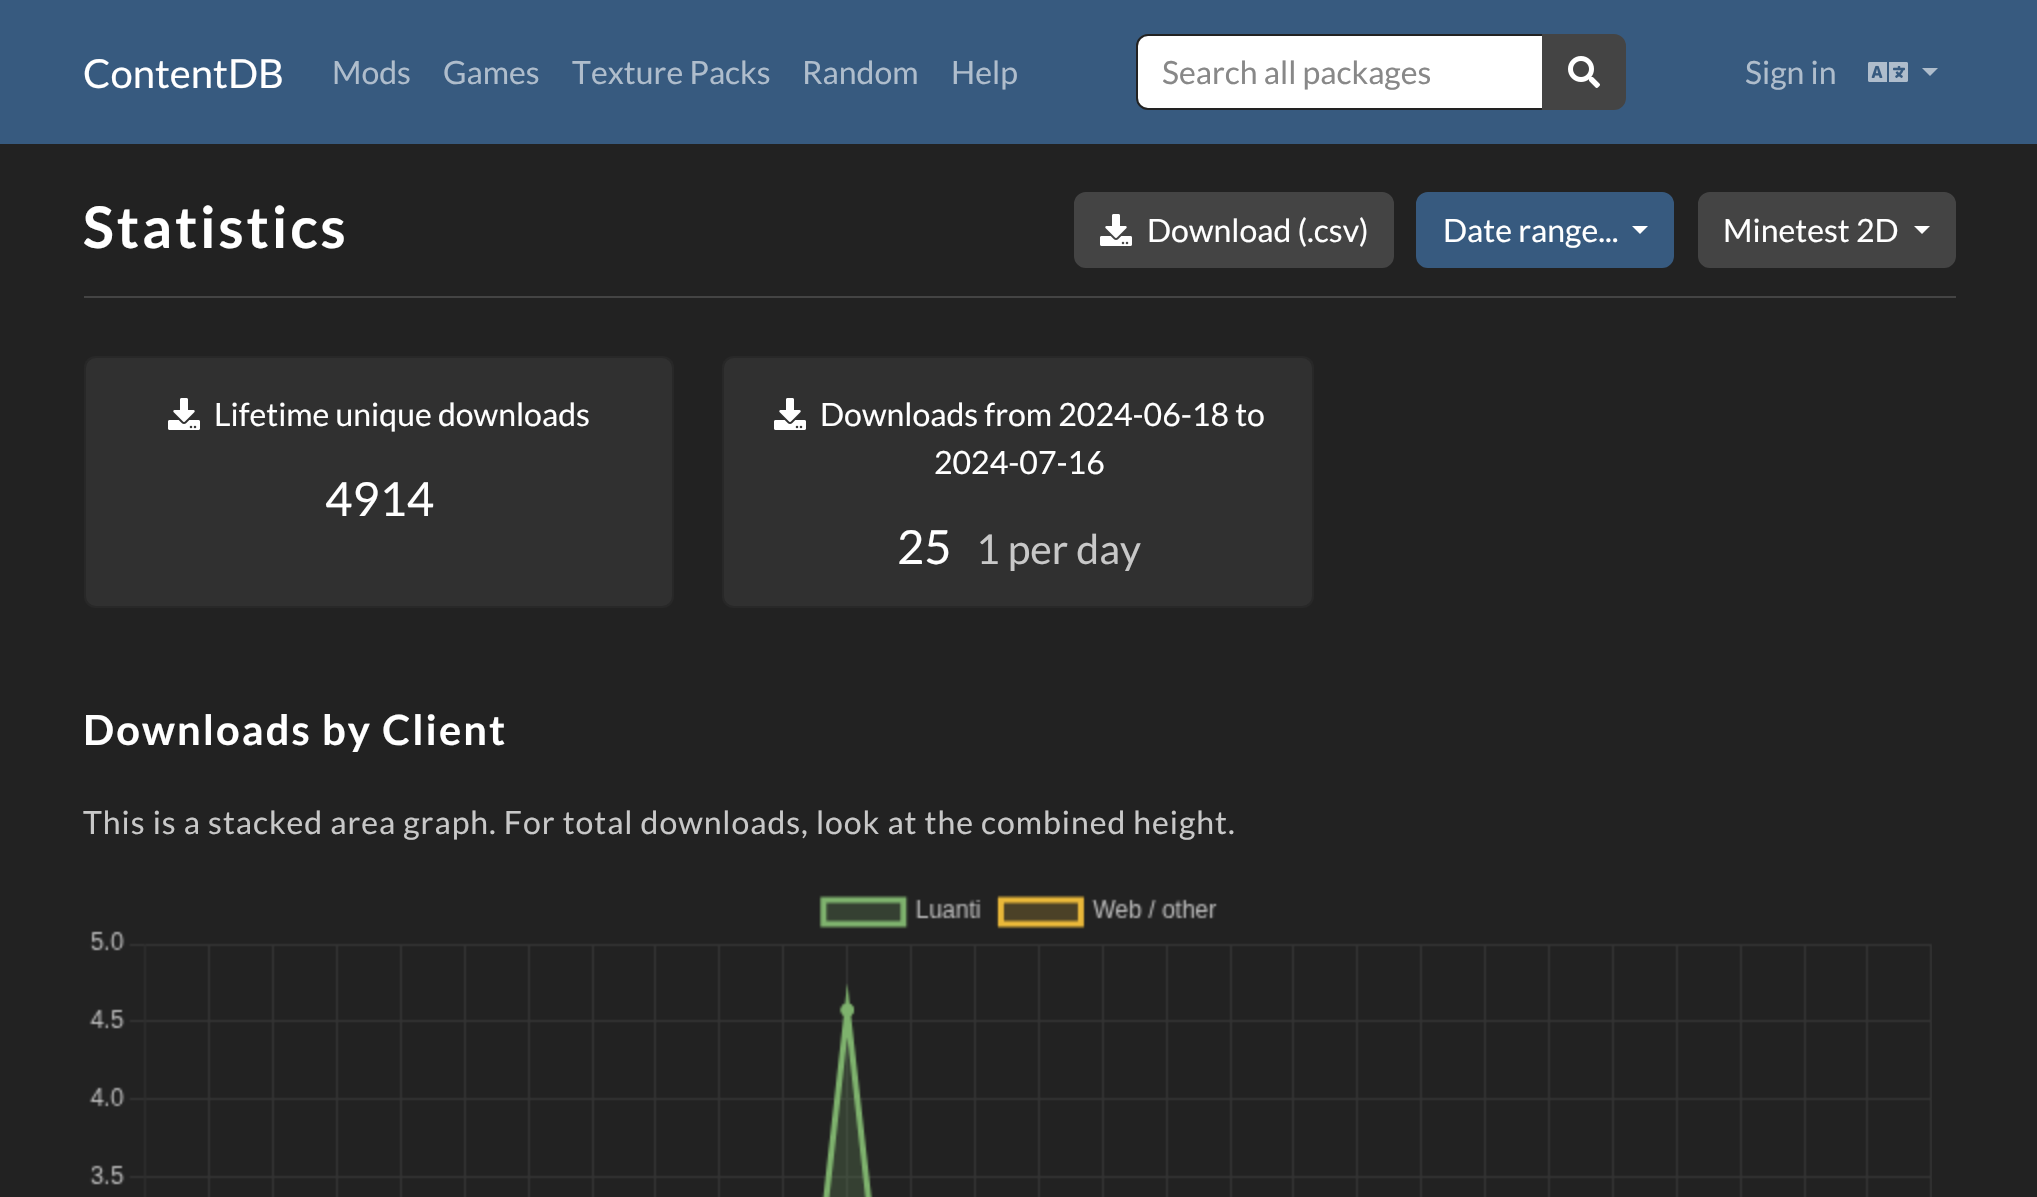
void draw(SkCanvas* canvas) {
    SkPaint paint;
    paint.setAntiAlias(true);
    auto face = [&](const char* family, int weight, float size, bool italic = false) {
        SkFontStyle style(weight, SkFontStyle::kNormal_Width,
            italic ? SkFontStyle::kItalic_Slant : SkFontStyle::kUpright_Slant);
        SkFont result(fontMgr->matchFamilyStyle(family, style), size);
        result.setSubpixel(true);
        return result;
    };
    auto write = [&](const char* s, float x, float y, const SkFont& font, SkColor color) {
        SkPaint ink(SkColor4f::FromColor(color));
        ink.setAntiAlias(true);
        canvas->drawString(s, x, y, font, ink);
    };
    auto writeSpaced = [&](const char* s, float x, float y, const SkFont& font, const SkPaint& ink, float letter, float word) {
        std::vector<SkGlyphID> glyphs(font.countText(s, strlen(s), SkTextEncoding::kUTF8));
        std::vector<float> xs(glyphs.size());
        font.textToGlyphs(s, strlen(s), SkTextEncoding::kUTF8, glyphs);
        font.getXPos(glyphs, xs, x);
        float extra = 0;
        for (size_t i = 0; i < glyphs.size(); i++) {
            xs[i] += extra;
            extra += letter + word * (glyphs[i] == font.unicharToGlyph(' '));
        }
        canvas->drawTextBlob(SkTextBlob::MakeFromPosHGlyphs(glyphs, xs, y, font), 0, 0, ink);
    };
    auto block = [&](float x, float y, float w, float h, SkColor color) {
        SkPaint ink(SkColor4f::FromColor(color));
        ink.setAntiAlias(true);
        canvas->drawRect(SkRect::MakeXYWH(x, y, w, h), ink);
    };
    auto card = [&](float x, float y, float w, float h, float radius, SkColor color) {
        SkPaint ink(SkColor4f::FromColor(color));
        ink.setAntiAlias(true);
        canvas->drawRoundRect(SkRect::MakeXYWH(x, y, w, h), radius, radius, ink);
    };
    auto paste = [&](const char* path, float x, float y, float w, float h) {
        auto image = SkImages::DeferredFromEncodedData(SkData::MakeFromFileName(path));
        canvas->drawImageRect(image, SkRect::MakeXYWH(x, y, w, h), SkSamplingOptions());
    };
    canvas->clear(SkColorSetRGB(34, 34, 34));
    block(0, 0, 2037, 144, SkColorSetRGB(55, 90, 127));
    auto kFont1 = face("Lato", 400, 40);
    write("ContentDB", 83, 88, kFont1, SK_ColorWHITE);
    auto kFont2 = face("Lato", 400, 32);
    write("Mods", 332, 84, kFont2, SkColorSetRGB(175, 189, 204));
    write("Games", 443, 84, kFont2, SkColorSetRGB(175, 189, 204));
    write("Texture Packs", 572, 84, kFont2, SkColorSetRGB(175, 189, 204));
    write("Random", 802, 84, kFont2, SkColorSetRGB(175, 189, 204));
    write("Help", 951, 84, kFont2, SkColorSetRGB(175, 189, 204));
    paint.setColor(SK_ColorWHITE);
    canvas->drawPath(SkPathBuilder().moveTo(1148, 35).lineTo(1543, 35).lineTo(1543, 109).lineTo(1148, 109).cubicTo(1142, 109, 1137, 104, 1137, 98).lineTo(1137, 46).cubicTo(1137, 40, 1142, 35, 1148, 35).close().detach(), paint);
    paint.setStyle(SkPaint::kStroke_Style);
    paint.setStrokeWidth(2);
    paint.setColor(SkColorSetRGB(34, 34, 34));
    canvas->drawPath(SkPathBuilder().moveTo(1148, 35).lineTo(1543, 35).lineTo(1543, 109).lineTo(1148, 109).cubicTo(1142, 109, 1137, 104, 1137, 98).lineTo(1137, 46).cubicTo(1137, 40, 1142, 35, 1148, 35).close().detach(), paint);
    write("Search all packages", 1162, 84, kFont2, SkColorSetRGB(136, 136, 136));
    paint.setStyle(SkPaint::kFill_Style);
    paint.setColor(SkColorSetRGB(68, 68, 68));
    canvas->drawPath(SkPathBuilder().moveTo(1543, 35).lineTo(1614, 35).cubicTo(1620, 35, 1625, 40, 1625, 46).lineTo(1625, 98).cubicTo(1625, 104, 1620, 109, 1614, 109).lineTo(1543, 109).close().detach(), paint);
    paint.setStyle(SkPaint::kStroke_Style);
    canvas->drawPath(SkPathBuilder().moveTo(1543, 35).lineTo(1614, 35).cubicTo(1620, 35, 1625, 40, 1625, 46).lineTo(1625, 98).cubicTo(1625, 104, 1620, 109, 1614, 109).lineTo(1543, 109).close().detach(), paint);
    paste("pic1.png", 1568, 56, 32, 32);
    write("Sign in", 1745, 84, kFont2, SkColorSetRGB(175, 189, 204));
    paste("pic2.png", 1868, 62, 40, 20);
    paint.setStyle(SkPaint::kFill_Style);
    paint.setColor(SkColorSetRGB(175, 189, 204));
    canvas->drawPath(SkPathBuilder().moveTo(1922, 68).lineTo(1938, 68).lineTo(1930, 76).close().detach(), paint);
    block(84, 296, 1872, 2, SkColorSetRGB(68, 68, 68));
    auto kFont3 = face("Lato", 700, 57.5f);
    paint.setColor(SK_ColorWHITE);
    writeSpaced("Statistics", 83, 248, kFont3, paint, 2.9f, 0);
    paint.setColor(SkColorSetRGB(68, 68, 68));
    canvas->drawRoundRect(SkRect::MakeXYWH(1075, 193, 318, 74), 11, 11, paint);
    paint.setStyle(SkPaint::kStroke_Style);
    canvas->drawRoundRect(SkRect::MakeXYWH(1075, 193, 318, 74), 11, 11, paint);
    paste("pic3.png", 1100, 214, 32, 32);
    write("Download (.csv)", 1147, 242, kFont2, SK_ColorWHITE);
    paint.setStyle(SkPaint::kFill_Style);
    paint.setColor(SkColorSetRGB(55, 90, 127));
    canvas->drawRoundRect(SkRect::MakeXYWH(1417, 193, 256, 74), 11, 11, paint);
    paint.setStyle(SkPaint::kStroke_Style);
    canvas->drawRoundRect(SkRect::MakeXYWH(1417, 193, 256, 74), 11, 11, paint);
    write("Date range...", 1443, 242, kFont2, SK_ColorWHITE);
    paint.setStyle(SkPaint::kFill_Style);
    paint.setColor(SK_ColorWHITE);
    canvas->drawPath(SkPathBuilder().moveTo(1632, 226).lineTo(1648, 226).lineTo(1640, 234).close().detach(), paint);
    paint.setColor(SkColorSetRGB(68, 68, 68));
    canvas->drawRoundRect(SkRect::MakeXYWH(1699, 193, 256, 74), 11, 11, paint);
    paint.setStyle(SkPaint::kStroke_Style);
    canvas->drawRoundRect(SkRect::MakeXYWH(1699, 193, 256, 74), 11, 11, paint);
    write("Minetest 2D", 1723, 242, kFont2, SK_ColorWHITE);
    paint.setStyle(SkPaint::kFill_Style);
    paint.setColor(SK_ColorWHITE);
    canvas->drawPath(SkPathBuilder().moveTo(1914, 226).lineTo(1930, 226).lineTo(1922, 234).close().detach(), paint);
    card(84, 356, 590, 252, 12, SkColorSetRGB(48, 48, 48));
    paint.setStyle(SkPaint::kStroke_Style);
    paint.setColor(SkColorSetARGB(46, 0, 0, 0));
    canvas->drawRoundRect(SkRect::MakeXYWH(85, 357, 588, 250), 11, 11, paint);
    paste("pic4.png", 168, 398, 32, 32);
    write("Lifetime unique downloads", 214, 426, kFont2, SK_ColorWHITE);
    auto kFont4 = face("Lato", 400, 47);
    write("4914", 325, 516, kFont4, SK_ColorWHITE);
    card(722, 356, 592, 252, 12, SkColorSetRGB(48, 48, 48));
    canvas->drawRoundRect(SkRect::MakeXYWH(723, 357, 590, 250), 11, 11, paint);
    paste("pic4.png", 774, 398, 32, 32);
    write("Downloads from 2024-06-18 to", 820, 426, kFont2, SK_ColorWHITE);
    write("2024-07-16", 934, 474, kFont2, SK_ColorWHITE);
    write("25", 897, 564, kFont4, SK_ColorWHITE);
    auto kFont5 = face("Lato", 400, 41);
    write("1 per day", 976, 564, kFont5, SkColorSetRGB(200, 200, 200));
    auto kFont6 = face("Lato", 700, 41.6f);
    paint.setStyle(SkPaint::kFill_Style);
    paint.setColor(SK_ColorWHITE);
    writeSpaced("Downloads by Client", 83, 745, kFont6, paint, 2.1f, 0);
    paint.setColor(SkColorSetRGB(200, 200, 200));
    writeSpaced("This is a stacked area graph. For total downloads, look at the combined height.", 83, 834, kFont2, paint, 0.95f, 0);
    paste("pic5.png", 89, 895, 1843, 302);
}
